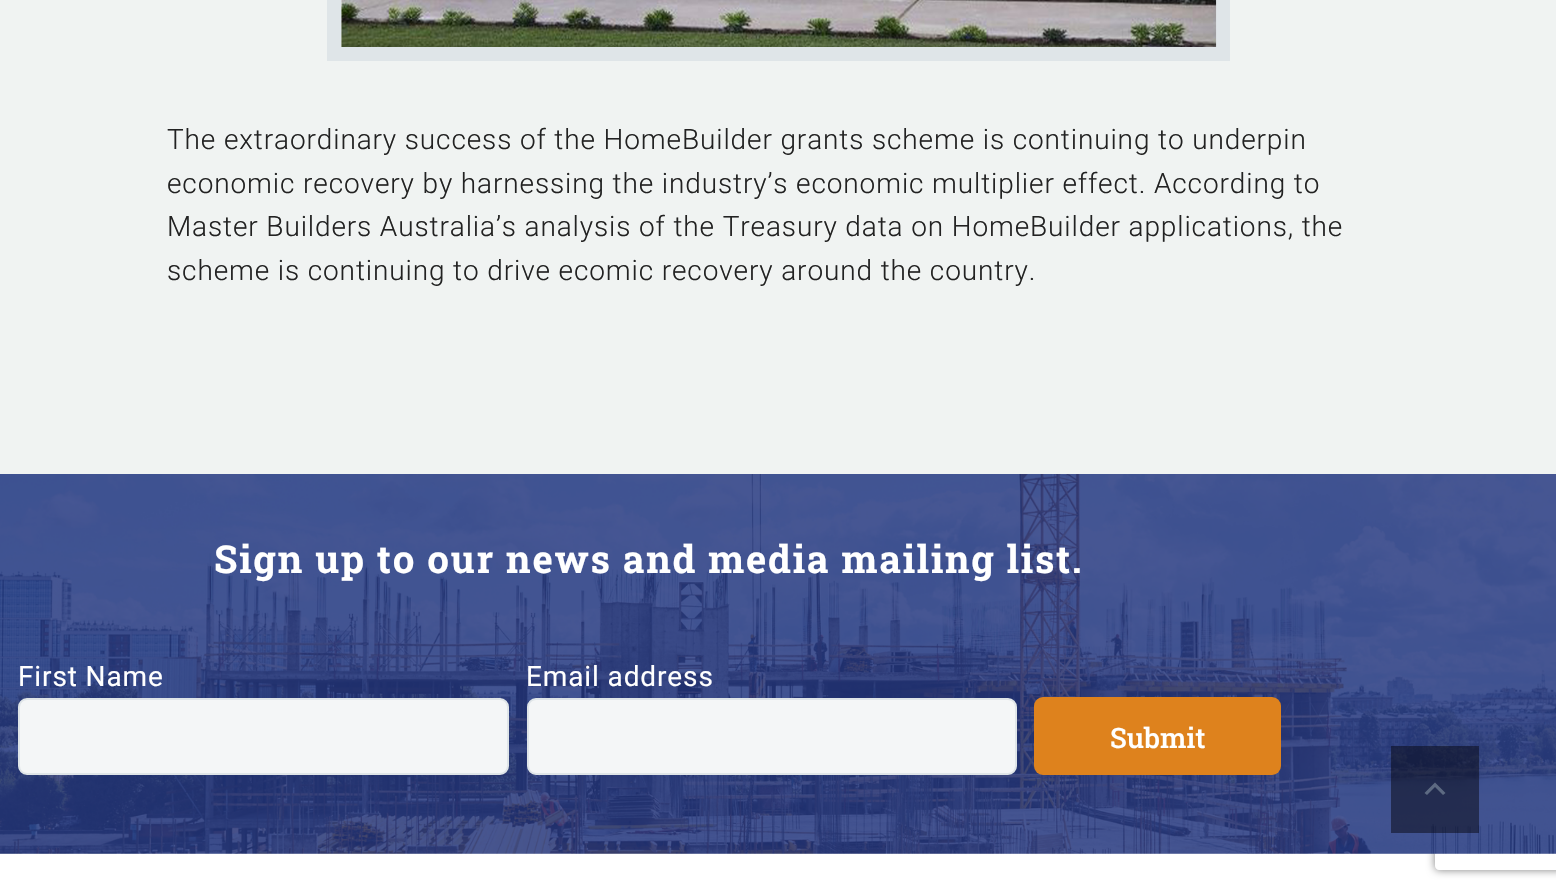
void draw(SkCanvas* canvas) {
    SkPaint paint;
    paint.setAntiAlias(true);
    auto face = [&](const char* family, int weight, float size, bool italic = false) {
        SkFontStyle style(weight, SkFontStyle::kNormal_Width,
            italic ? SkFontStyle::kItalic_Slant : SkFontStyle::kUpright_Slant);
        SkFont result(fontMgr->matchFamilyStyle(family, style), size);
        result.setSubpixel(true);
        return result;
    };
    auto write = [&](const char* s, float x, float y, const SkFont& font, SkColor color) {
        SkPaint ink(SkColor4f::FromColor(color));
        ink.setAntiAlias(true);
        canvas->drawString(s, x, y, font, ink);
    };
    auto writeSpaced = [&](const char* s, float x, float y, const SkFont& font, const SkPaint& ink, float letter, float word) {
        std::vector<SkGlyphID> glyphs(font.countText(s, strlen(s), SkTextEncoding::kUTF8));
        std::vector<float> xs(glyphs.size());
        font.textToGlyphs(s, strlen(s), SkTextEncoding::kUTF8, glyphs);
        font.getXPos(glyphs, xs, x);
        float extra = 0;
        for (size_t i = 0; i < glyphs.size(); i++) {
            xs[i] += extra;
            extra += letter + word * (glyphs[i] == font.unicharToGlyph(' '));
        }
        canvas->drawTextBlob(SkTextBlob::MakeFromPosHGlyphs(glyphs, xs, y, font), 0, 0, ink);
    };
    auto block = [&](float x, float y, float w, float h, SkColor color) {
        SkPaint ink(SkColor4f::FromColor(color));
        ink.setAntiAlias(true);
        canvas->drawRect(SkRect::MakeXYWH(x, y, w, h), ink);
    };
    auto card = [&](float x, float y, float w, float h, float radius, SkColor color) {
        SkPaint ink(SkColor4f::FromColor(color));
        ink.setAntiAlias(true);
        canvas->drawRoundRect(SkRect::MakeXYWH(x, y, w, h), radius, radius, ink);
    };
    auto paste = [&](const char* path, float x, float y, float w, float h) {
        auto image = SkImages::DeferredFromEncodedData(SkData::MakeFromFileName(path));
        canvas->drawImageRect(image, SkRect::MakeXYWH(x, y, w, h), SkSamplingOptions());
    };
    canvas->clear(SkColorSetRGB(240, 243, 242));
    paint.setStyle(SkPaint::kStroke_Style);
    paint.setStrokeWidth(14);
    paint.setColor(SkColorSetRGB(223, 229, 232));
    canvas->drawRect(SkRect::MakeXYWH(334, -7, 889, 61), paint);
    paste("pic1.png", 341, 0, 876, 47);
    auto kFont1 = face("Roboto", 300, 28);
    paint.setStyle(SkPaint::kFill_Style);
    paint.setColor(SkColorSetRGB(34, 34, 34));
    writeSpaced("The extraordinary success of the HomeBuilder grants scheme is continuing to underpin", 167, 149, kFont1, paint, 0.88f, 0);
    writeSpaced("economic recovery by harnessing the industry’s economic multiplier effect. According to", 167, 193, kFont1, paint, 0.88f, 0);
    writeSpaced("Master Builders Australia’s analysis of the Treasury data on HomeBuilder applications, the", 167, 236, kFont1, paint, 0.88f, 0);
    writeSpaced("scheme is continuing to drive ecomic recovery around the country.", 167, 280, kFont1, paint, 0.88f, 0);
    block(0, 854, 1556, 40, SK_ColorWHITE);
    canvas->save();
    canvas->clipPath(SkPathBuilder(SkPathFillType::kEvenOdd).moveTo(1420, 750).lineTo(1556, 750).lineTo(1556, 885).lineTo(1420, 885).close().moveTo(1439, 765).lineTo(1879, 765).cubicTo(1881, 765, 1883, 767, 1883, 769).lineTo(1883, 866).cubicTo(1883, 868, 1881, 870, 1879, 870).lineTo(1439, 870).cubicTo(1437, 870, 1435, 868, 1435, 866).lineTo(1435, 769).cubicTo(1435, 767, 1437, 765, 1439, 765).close().detach(), true);
    paint.setColor(SkColorSetRGB(128, 128, 128));
    paint.setMaskFilter(SkMaskFilter::MakeBlur(kNormal_SkBlurStyle, 4.5f));
    canvas->drawRoundRect(SkRect::MakeXYWH(1435, 765, 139, 105), 4, 4, paint);
    paint.setMaskFilter(nullptr);
    canvas->restore();
    paste("pic2.png", 0, 474, 1556, 380);
    auto kFont2 = face("Roboto Slab", 700, 38.5f);
    paint.setColor(SK_ColorWHITE);
    writeSpaced("Sign up to our news and media mailing list.", 214, 573, kFont2, paint, 1.75f, 0);
    auto kFont3 = face("Roboto", 400, 28);
    writeSpaced("First Name", 18, 686, kFont3, paint, 0.88f, 0);
    paint.setColor(SkColorSetRGB(244, 246, 247));
    canvas->drawRoundRect(SkRect::MakeXYWH(19, 699, 489, 75), 8, 8, paint);
    paint.setStyle(SkPaint::kStroke_Style);
    paint.setStrokeWidth(2);
    paint.setColor(SkColorSetRGB(223, 229, 232));
    canvas->drawRoundRect(SkRect::MakeXYWH(19, 699, 489, 75), 8, 8, paint);
    paint.setStyle(SkPaint::kFill_Style);
    paint.setColor(SK_ColorWHITE);
    writeSpaced("Email address", 526, 686, kFont3, paint, 0.88f, 0);
    paint.setColor(SkColorSetRGB(244, 246, 247));
    canvas->drawRoundRect(SkRect::MakeXYWH(528, 699, 488, 75), 8, 8, paint);
    paint.setStyle(SkPaint::kStroke_Style);
    paint.setColor(SkColorSetRGB(223, 229, 232));
    canvas->drawRoundRect(SkRect::MakeXYWH(528, 699, 488, 75), 8, 8, paint);
    card(1034, 697, 247, 78, 9, SkColorSetRGB(222, 130, 29));
    auto kFont4 = face("Roboto Slab", 500, 28);
    write("Submit", 1110, 748, kFont4, SK_ColorWHITE);
    block(1391, 746, 88, 87, SkColorSetARGB(128, 6, 6, 15));
    paint.setStyle(SkPaint::kFill_Style);
    paint.setColor(SkColorSetRGB(93, 106, 130));
    canvas->drawPath(SkPathBuilder().moveTo(1427, 795).lineTo(1435, 787).lineTo(1443, 795).lineTo(1445.5f, 793).lineTo(1435, 782.5f).lineTo(1424.5f, 793).close().detach(), paint);
}
